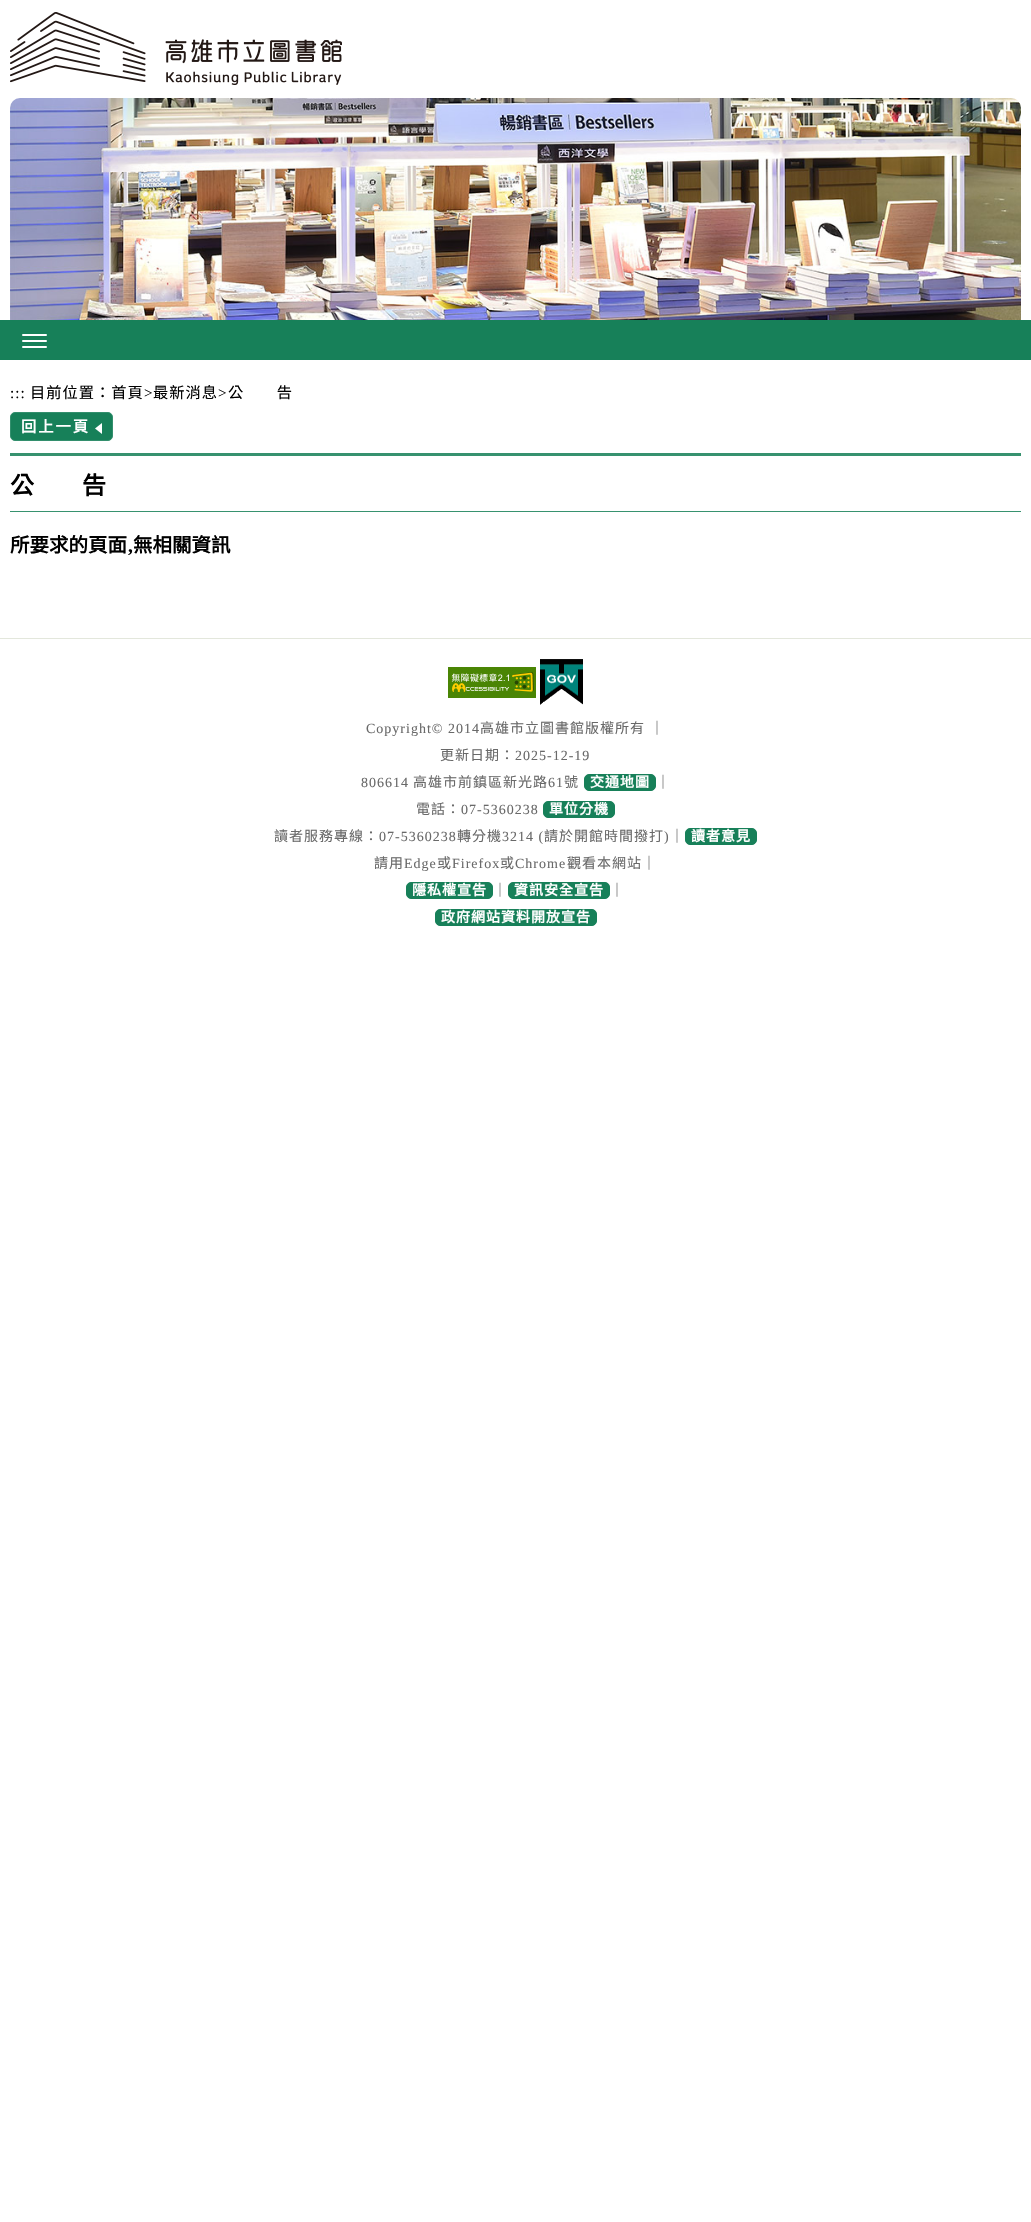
void draw(SkCanvas* canvas) {
    SkPaint paint;
    paint.setAntiAlias(true);
    auto face = [&](const char* family, int weight, float size, bool italic = false) {
        SkFontStyle style(weight, SkFontStyle::kNormal_Width,
            italic ? SkFontStyle::kItalic_Slant : SkFontStyle::kUpright_Slant);
        SkFont result(fontMgr->matchFamilyStyle(family, style), size);
        result.setSubpixel(true);
        return result;
    };
    auto write = [&](const char* s, float x, float y, const SkFont& font, SkColor color) {
        SkPaint ink(SkColor4f::FromColor(color));
        ink.setAntiAlias(true);
        canvas->drawString(s, x, y, font, ink);
    };
    auto writeSpaced = [&](const char* s, float x, float y, const SkFont& font, const SkPaint& ink, float letter, float word) {
        std::vector<SkGlyphID> glyphs(font.countText(s, strlen(s), SkTextEncoding::kUTF8));
        std::vector<float> xs(glyphs.size());
        font.textToGlyphs(s, strlen(s), SkTextEncoding::kUTF8, glyphs);
        font.getXPos(glyphs, xs, x);
        float extra = 0;
        for (size_t i = 0; i < glyphs.size(); i++) {
            xs[i] += extra;
            extra += letter + word * (glyphs[i] == font.unicharToGlyph(' '));
        }
        canvas->drawTextBlob(SkTextBlob::MakeFromPosHGlyphs(glyphs, xs, y, font), 0, 0, ink);
    };
    auto block = [&](float x, float y, float w, float h, SkColor color) {
        SkPaint ink(SkColor4f::FromColor(color));
        ink.setAntiAlias(true);
        canvas->drawRect(SkRect::MakeXYWH(x, y, w, h), ink);
    };
    auto card = [&](float x, float y, float w, float h, float radius, SkColor color) {
        SkPaint ink(SkColor4f::FromColor(color));
        ink.setAntiAlias(true);
        canvas->drawRoundRect(SkRect::MakeXYWH(x, y, w, h), radius, radius, ink);
    };
    auto paste = [&](const char* path, float x, float y, float w, float h) {
        auto image = SkImages::DeferredFromEncodedData(SkData::MakeFromFileName(path));
        canvas->drawImageRect(image, SkRect::MakeXYWH(x, y, w, h), SkSamplingOptions());
    };
    canvas->clear(SK_ColorWHITE);
    paste("pic1.png", 10, 12, 332, 73);
    paste("pic2.png", 10, 98, 1011, 222);
    block(0, 320, 1031, 40, SkColorSetRGB(23, 128, 89));
    card(22, 334, 25, 2, 1, SK_ColorWHITE);
    card(22, 340, 25, 2, 1, SK_ColorWHITE);
    card(22, 346, 25, 2, 1, SK_ColorWHITE);
    auto kFont1 = face("Liberation Serif", 400, 15.25f);
    paint.setColor(SK_ColorBLACK);
    writeSpaced(":::", 10, 398, kFont1, paint, 1, 0);
    auto kFont2 = face("Noto Sans CJK TC", 400, 15.25f);
    writeSpaced("目前位置：首頁", 30, 398, kFont2, paint, 1, 0);
    writeSpaced(">", 144, 398, kFont1, paint, 1, 0);
    writeSpaced("最新消息", 153, 398, kFont2, paint, 1, 0);
    writeSpaced(">", 218, 398, kFont1, paint, 1, 0);
    writeSpaced("公　　告", 228, 398, kFont2, paint, 1, 0);
    paint.setColor(SkColorSetRGB(23, 128, 89));
    canvas->drawRoundRect(SkRect::MakeXYWH(10.5f, 412.5f, 102, 28), 4.5f, 4.5f, paint);
    paint.setStyle(SkPaint::kStroke_Style);
    paint.setStrokeWidth(1);
    paint.setColor(SkColorSetRGB(51, 143, 109));
    canvas->drawRoundRect(SkRect::MakeXYWH(10.5f, 412.5f, 102, 28), 4.5f, 4.5f, paint);
    auto kFont3 = face("Noto Sans CJK TC", 700, 15.25f);
    paint.setStyle(SkPaint::kFill_Style);
    paint.setColor(SK_ColorWHITE);
    writeSpaced("回上一頁", 21, 432, kFont3, paint, 2, 0);
    paste("pic3.png", 95, 423, 7, 11);
    block(10, 453, 1011, 3, SkColorSetRGB(55, 146, 111));
    block(10, 511, 1011, 1, SkColorSetRGB(55, 146, 111));
    auto kFont4 = face("Noto Sans CJK TC", 700, 24);
    write("公　　告", 10, 494, kFont4, SK_ColorBLACK);
    auto kFont5 = face("Noto Sans CJK TC", 700, 19.5f);
    write("所要求的頁面", 10, 552, kFont5, SK_ColorBLACK);
    auto kFont6 = face("Liberation Serif", 700, 19.5f);
    write(",", 128, 552, kFont6, SK_ColorBLACK);
    write("無相關資訊", 133, 552, kFont5, SK_ColorBLACK);
    block(0, 638, 1031, 1, SkColorSetRGB(227, 231, 220));
    paste("pic4.png", 448, 667, 88, 31);
    paste("pic5.png", 540, 659, 43, 46);
    auto kFont7 = face("Liberation Serif", 400, 14);
    paint.setColor(SkColorSetRGB(105, 105, 105));
    writeSpaced("Copyright© 2014", 366, 733, kFont7, paint, 1, 0);
    auto kFont8 = face("Noto Sans CJK TC", 400, 14);
    writeSpaced("高雄市立圖書館版權所有", 480, 733, kFont8, paint, 1, 0);
    writeSpaced("｜", 650, 733, kFont8, paint, 1, 0);
    writeSpaced("更新日期：", 440, 760, kFont8, paint, 1, 0);
    writeSpaced("2025-12-19", 515, 760, kFont7, paint, 1, 0);
    writeSpaced("806614", 361, 787, kFont7, paint, 1, 0);
    writeSpaced("高雄市前鎮區新光路", 413, 787, kFont8, paint, 1, 0);
    writeSpaced("61", 548, 787, kFont7, paint, 1, 0);
    writeSpaced("號", 564, 787, kFont8, paint, 1, 0);
    paint.setColor(SkColorSetRGB(23, 128, 89));
    canvas->drawRoundRect(SkRect::MakeXYWH(584.5f, 774.5f, 71, 16), 4.5f, 4.5f, paint);
    paint.setStyle(SkPaint::kStroke_Style);
    canvas->drawRoundRect(SkRect::MakeXYWH(584.5f, 774.5f, 71, 16), 4.5f, 4.5f, paint);
    auto kFont9 = face("Noto Sans CJK TC", 700, 14);
    paint.setStyle(SkPaint::kFill_Style);
    paint.setColor(SK_ColorWHITE);
    writeSpaced("交通地圖", 590, 787, kFont9, paint, 1, 0);
    paint.setColor(SkColorSetRGB(105, 105, 105));
    writeSpaced("｜", 656, 787, kFont8, paint, 1, 0);
    writeSpaced("電話：", 416, 814, kFont8, paint, 1, 0);
    writeSpaced("07-5360238", 461, 814, kFont7, paint, 1, 0);
    paint.setColor(SkColorSetRGB(23, 128, 89));
    canvas->drawRoundRect(SkRect::MakeXYWH(543.5f, 801.5f, 71, 16), 4.5f, 4.5f, paint);
    paint.setStyle(SkPaint::kStroke_Style);
    canvas->drawRoundRect(SkRect::MakeXYWH(543.5f, 801.5f, 71, 16), 4.5f, 4.5f, paint);
    paint.setStyle(SkPaint::kFill_Style);
    paint.setColor(SK_ColorWHITE);
    writeSpaced("單位分機", 549, 814, kFont9, paint, 1, 0);
    paint.setColor(SkColorSetRGB(105, 105, 105));
    writeSpaced("讀者服務專線：", 274, 841, kFont8, paint, 1, 0);
    writeSpaced("07-5360238", 379, 841, kFont7, paint, 1, 0);
    writeSpaced("轉分機", 457, 841, kFont8, paint, 1, 0);
    writeSpaced("3214 (", 502, 841, kFont7, paint, 1, 0);
    writeSpaced("請於開館時間撥打", 544, 841, kFont8, paint, 1, 0);
    writeSpaced(")", 664, 841, kFont7, paint, 1, 0);
    writeSpaced("｜", 670, 841, kFont8, paint, 1, 0);
    paint.setColor(SkColorSetRGB(23, 128, 89));
    canvas->drawRoundRect(SkRect::MakeXYWH(685.5f, 828.5f, 71, 16), 4.5f, 4.5f, paint);
    paint.setStyle(SkPaint::kStroke_Style);
    canvas->drawRoundRect(SkRect::MakeXYWH(685.5f, 828.5f, 71, 16), 4.5f, 4.5f, paint);
    paint.setStyle(SkPaint::kFill_Style);
    paint.setColor(SK_ColorWHITE);
    writeSpaced("讀者意見", 691, 841, kFont9, paint, 1, 0);
    paint.setColor(SkColorSetRGB(105, 105, 105));
    writeSpaced("請用", 374, 868, kFont8, paint, 1, 0);
    writeSpaced("Edge", 404, 868, kFont7, paint, 1, 0);
    writeSpaced("或", 437, 868, kFont8, paint, 1, 0);
    writeSpaced("Firefox", 452, 868, kFont7, paint, 1, 0);
    writeSpaced("或", 500, 868, kFont8, paint, 1, 0);
    writeSpaced("Chrome", 515, 868, kFont7, paint, 1, 0);
    writeSpaced("觀看本網站｜", 567, 868, kFont8, paint, 1, 0);
    paint.setColor(SkColorSetRGB(23, 128, 89));
    canvas->drawRoundRect(SkRect::MakeXYWH(406.5f, 882.5f, 86, 16), 4.5f, 4.5f, paint);
    paint.setStyle(SkPaint::kStroke_Style);
    canvas->drawRoundRect(SkRect::MakeXYWH(406.5f, 882.5f, 86, 16), 4.5f, 4.5f, paint);
    paint.setStyle(SkPaint::kFill_Style);
    paint.setColor(SK_ColorWHITE);
    writeSpaced("隱私權宣告", 412, 895, kFont9, paint, 1, 0);
    paint.setColor(SkColorSetRGB(105, 105, 105));
    writeSpaced("｜", 493, 895, kFont8, paint, 1, 0);
    paint.setColor(SkColorSetRGB(23, 128, 89));
    canvas->drawRoundRect(SkRect::MakeXYWH(508.5f, 882.5f, 101, 16), 4.5f, 4.5f, paint);
    paint.setStyle(SkPaint::kStroke_Style);
    canvas->drawRoundRect(SkRect::MakeXYWH(508.5f, 882.5f, 101, 16), 4.5f, 4.5f, paint);
    paint.setStyle(SkPaint::kFill_Style);
    paint.setColor(SK_ColorWHITE);
    writeSpaced("資訊安全宣告", 514, 895, kFont9, paint, 1, 0);
    paint.setColor(SkColorSetRGB(105, 105, 105));
    writeSpaced("｜", 610, 895, kFont8, paint, 1, 0);
    paint.setColor(SkColorSetRGB(23, 128, 89));
    canvas->drawRoundRect(SkRect::MakeXYWH(435.5f, 909.5f, 161, 16), 4.5f, 4.5f, paint);
    paint.setStyle(SkPaint::kStroke_Style);
    canvas->drawRoundRect(SkRect::MakeXYWH(435.5f, 909.5f, 161, 16), 4.5f, 4.5f, paint);
    paint.setStyle(SkPaint::kFill_Style);
    paint.setColor(SK_ColorWHITE);
    writeSpaced("政府網站資料開放宣告", 441, 922, kFont9, paint, 1, 0);
}
